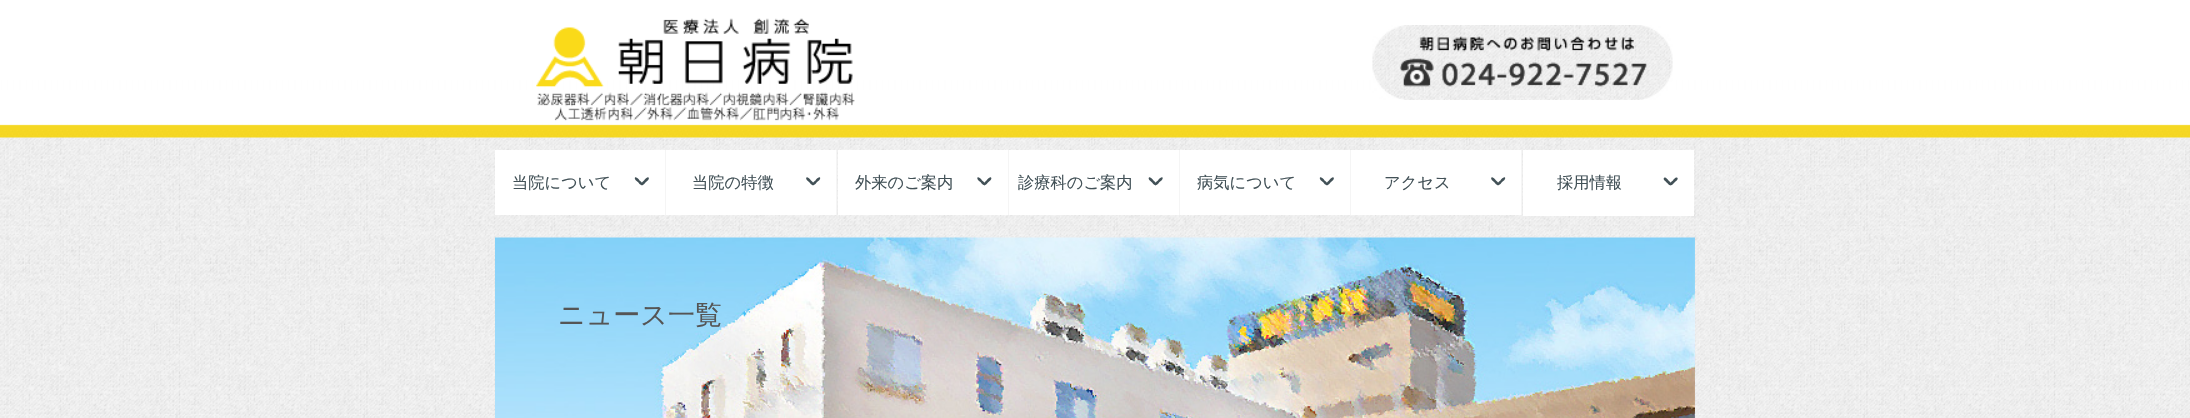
void draw(SkCanvas* canvas) {
    SkPaint paint;
    paint.setAntiAlias(true);
    auto face = [&](const char* family, int weight, float size, bool italic = false) {
        SkFontStyle style(weight, SkFontStyle::kNormal_Width,
            italic ? SkFontStyle::kItalic_Slant : SkFontStyle::kUpright_Slant);
        SkFont result(fontMgr->matchFamilyStyle(family, style), size);
        result.setSubpixel(true);
        return result;
    };
    auto write = [&](const char* s, float x, float y, const SkFont& font, SkColor color) {
        SkPaint ink(SkColor4f::FromColor(color));
        ink.setAntiAlias(true);
        canvas->drawString(s, x, y, font, ink);
    };
    auto block = [&](float x, float y, float w, float h, SkColor color) {
        SkPaint ink(SkColor4f::FromColor(color));
        ink.setAntiAlias(true);
        canvas->drawRect(SkRect::MakeXYWH(x, y, w, h), ink);
    };
    auto paste = [&](const char* path, float x, float y, float w, float h) {
        auto image = SkImages::DeferredFromEncodedData(SkData::MakeFromFileName(path));
        canvas->drawImageRect(image, SkRect::MakeXYWH(x, y, w, h), SkSamplingOptions());
    };
    canvas->clear(SK_ColorWHITE);
    paste("pic1.png", 0, 137, 2190, 281);
    paste("pic2.png", 0, 0, 2190, 138);
    paste("pic3.png", 536, 18, 319, 103);
    paste("pic4.png", 1372, 25, 301, 75);
    block(665, 150, 1, 65, SkColorSetRGB(245, 245, 245));
    block(495, 150, 170, 65, SK_ColorWHITE);
    auto kFont1 = face("WenQuanYi Zen Hei", 500, 16.25f);
    write("当院について", 512, 188, kFont1, SkColorSetRGB(66, 81, 87));
    paint.setColor(SkColorSetRGB(66, 81, 87));
    canvas->drawPath(SkPathBuilder().moveTo(635, 177.5f).cubicTo(636.5f, 176.5f, 639, 179.5f, 639.5f, 180.5f).cubicTo(640.5f, 181, 643.5f, 183.5f, 642.5f, 185).cubicTo(641, 186, 638.5f, 183, 638, 182).cubicTo(637, 181.5f, 634, 179, 635, 177.5f).close().detach(), paint);
    canvas->drawPath(SkPathBuilder().moveTo(648.5f, 177.5f).cubicTo(650, 179, 646.5f, 181.5f, 646, 182).cubicTo(645, 183, 643, 186, 641.5f, 185).cubicTo(640, 183.5f, 643.5f, 181, 644, 180.5f).cubicTo(645, 179.5f, 647, 176.5f, 648.5f, 177.5f).close().detach(), paint);
    block(836, 150, 1, 65, SkColorSetRGB(245, 245, 245));
    block(666, 150, 170, 65, SK_ColorWHITE);
    write("当院の特徴", 692, 188, kFont1, SkColorSetRGB(66, 81, 87));
    canvas->drawPath(SkPathBuilder().moveTo(806.5f, 177.5f).cubicTo(808, 176.5f, 810, 179.5f, 811, 180.5f).cubicTo(811.5f, 181, 815, 183.5f, 813.5f, 185).cubicTo(812, 186, 810, 183, 809, 182).cubicTo(808.5f, 181.5f, 805, 179, 806.5f, 177.5f).close().detach(), paint);
    canvas->drawPath(SkPathBuilder().moveTo(820, 177.5f).cubicTo(821, 179, 818, 181.5f, 817, 182).cubicTo(816.5f, 183, 814, 186, 812.5f, 185).cubicTo(811.5f, 183.5f, 814.5f, 181, 815.5f, 180.5f).cubicTo(816, 179.5f, 818.5f, 176.5f, 820, 177.5f).close().detach(), paint);
    block(1008, 150, 1, 65, SkColorSetRGB(245, 245, 245));
    block(838, 150, 170, 65, SK_ColorWHITE);
    write("外来のご案内", 855, 188, kFont1, SkColorSetRGB(66, 81, 87));
    canvas->drawPath(SkPathBuilder().moveTo(977.5f, 177.5f).cubicTo(979, 176.5f, 981.5f, 179.5f, 982, 180.5f).cubicTo(983, 181, 986, 183.5f, 985, 185).cubicTo(983.5f, 186, 981, 183, 980.5f, 182).cubicTo(979.5f, 181.5f, 976.5f, 179, 977.5f, 177.5f).close().detach(), paint);
    canvas->drawPath(SkPathBuilder().moveTo(991, 177.5f).cubicTo(992.5f, 179, 989, 181.5f, 988.5f, 182).cubicTo(987.5f, 183, 985.5f, 186, 984, 185).cubicTo(982.5f, 183.5f, 986, 181, 986.5f, 180.5f).cubicTo(987.5f, 179.5f, 989.5f, 176.5f, 991, 177.5f).close().detach(), paint);
    block(1179, 150, 1, 65, SkColorSetRGB(245, 245, 245));
    block(1009, 150, 170, 65, SK_ColorWHITE);
    write("診療科のご案内", 1018, 188, kFont1, SkColorSetRGB(66, 81, 87));
    canvas->drawPath(SkPathBuilder().moveTo(1149, 177.5f).cubicTo(1150.5f, 176.5f, 1152.5f, 179.5f, 1153.5f, 180.5f).cubicTo(1154, 181, 1157.5f, 183.5f, 1156, 185).cubicTo(1154.5f, 186, 1152.5f, 183, 1151.5f, 182).cubicTo(1151, 181.5f, 1147.5f, 179, 1149, 177.5f).close().detach(), paint);
    canvas->drawPath(SkPathBuilder().moveTo(1162.5f, 177.5f).cubicTo(1163.5f, 179, 1160.5f, 181.5f, 1159.5f, 182).cubicTo(1159, 183, 1156.5f, 186, 1155, 185).cubicTo(1154, 183.5f, 1157, 181, 1158, 180.5f).cubicTo(1158.5f, 179.5f, 1161, 176.5f, 1162.5f, 177.5f).close().detach(), paint);
    block(1350, 150, 1, 65, SkColorSetRGB(245, 245, 245));
    block(1180, 150, 170, 65, SK_ColorWHITE);
    write("病気について", 1197, 188, kFont1, SkColorSetRGB(66, 81, 87));
    canvas->drawPath(SkPathBuilder().moveTo(1320, 177.5f).cubicTo(1321.5f, 176.5f, 1324, 179.5f, 1324.5f, 180.5f).cubicTo(1325.5f, 181, 1328.5f, 183.5f, 1327.5f, 185).cubicTo(1326, 186, 1323.5f, 183, 1323, 182).cubicTo(1322, 181.5f, 1319, 179, 1320, 177.5f).close().detach(), paint);
    canvas->drawPath(SkPathBuilder().moveTo(1333.5f, 177.5f).cubicTo(1335, 179, 1331.5f, 181.5f, 1331, 182).cubicTo(1330, 183, 1328, 186, 1326.5f, 185).cubicTo(1325, 183.5f, 1328.5f, 181, 1329, 180.5f).cubicTo(1330, 179.5f, 1332, 176.5f, 1333.5f, 177.5f).close().detach(), paint);
    block(1521, 150, 1, 65, SkColorSetRGB(245, 245, 245));
    block(1351, 150, 170, 65, SK_ColorWHITE);
    write("アクセス", 1384, 188, kFont1, SkColorSetRGB(66, 81, 87));
    canvas->drawPath(SkPathBuilder().moveTo(1491.5f, 177.5f).cubicTo(1493, 176.5f, 1495, 179.5f, 1496, 180.5f).cubicTo(1496.5f, 181, 1500, 183.5f, 1498.5f, 185).cubicTo(1497, 186, 1495, 183, 1494, 182).cubicTo(1493.5f, 181.5f, 1490, 179, 1491.5f, 177.5f).close().detach(), paint);
    canvas->drawPath(SkPathBuilder().moveTo(1505, 177.5f).cubicTo(1506, 179, 1503, 181.5f, 1502, 182).cubicTo(1501.5f, 183, 1499, 186, 1497.5f, 185).cubicTo(1496.5f, 183.5f, 1499.5f, 181, 1500.5f, 180.5f).cubicTo(1501, 179.5f, 1503.5f, 176.5f, 1505, 177.5f).close().detach(), paint);
    block(1523, 150, 171, 66, SK_ColorWHITE);
    write("採用情報", 1557, 188, kFont1, SkColorSetRGB(66, 81, 87));
    canvas->drawPath(SkPathBuilder().moveTo(1664, 178).cubicTo(1665.5f, 176.5f, 1667.5f, 179.5f, 1668.5f, 180.5f).cubicTo(1669, 181, 1672.5f, 183.5f, 1671, 185).cubicTo(1669.5f, 186.5f, 1667.5f, 183, 1666.5f, 182.5f).cubicTo(1666, 181.5f, 1662.5f, 179.5f, 1664, 178).close().detach(), paint);
    canvas->drawPath(SkPathBuilder().moveTo(1677.5f, 178).cubicTo(1678.5f, 179.5f, 1675.5f, 181.5f, 1674.5f, 182.5f).cubicTo(1674, 183, 1671.5f, 186.5f, 1670, 185).cubicTo(1669, 183.5f, 1672, 181, 1673, 180.5f).cubicTo(1673.5f, 179.5f, 1676, 176.5f, 1677.5f, 178).close().detach(), paint);
    paste("pic5.png", 495, 237, 1200, 181);
    auto kFont2 = face("WenQuanYi Zen Hei", 500, 27);
    write("ニュース一覧", 558, 324, kFont2, SkColorSetRGB(85, 85, 85));
}
